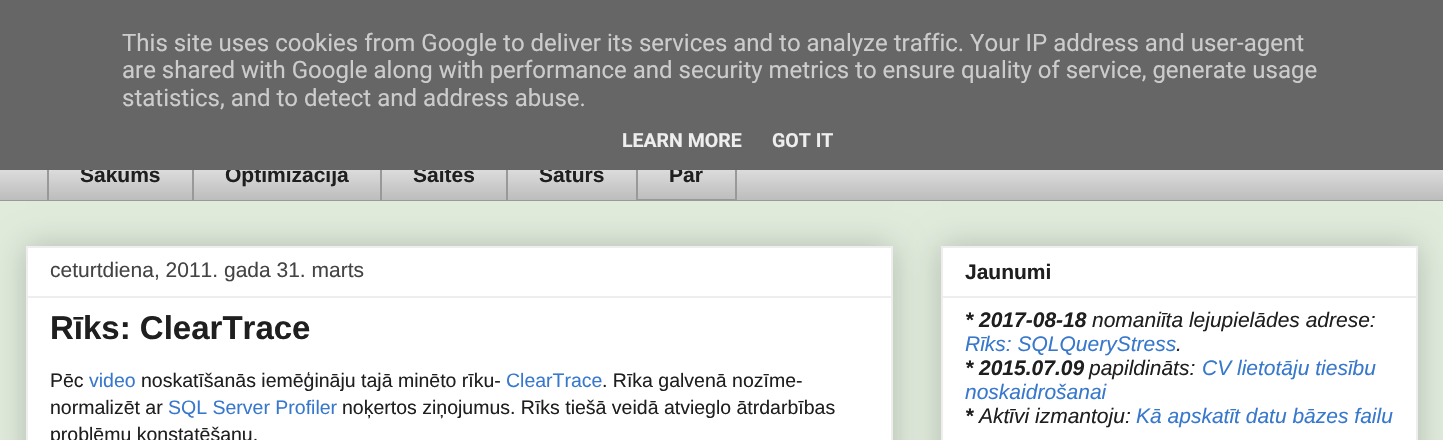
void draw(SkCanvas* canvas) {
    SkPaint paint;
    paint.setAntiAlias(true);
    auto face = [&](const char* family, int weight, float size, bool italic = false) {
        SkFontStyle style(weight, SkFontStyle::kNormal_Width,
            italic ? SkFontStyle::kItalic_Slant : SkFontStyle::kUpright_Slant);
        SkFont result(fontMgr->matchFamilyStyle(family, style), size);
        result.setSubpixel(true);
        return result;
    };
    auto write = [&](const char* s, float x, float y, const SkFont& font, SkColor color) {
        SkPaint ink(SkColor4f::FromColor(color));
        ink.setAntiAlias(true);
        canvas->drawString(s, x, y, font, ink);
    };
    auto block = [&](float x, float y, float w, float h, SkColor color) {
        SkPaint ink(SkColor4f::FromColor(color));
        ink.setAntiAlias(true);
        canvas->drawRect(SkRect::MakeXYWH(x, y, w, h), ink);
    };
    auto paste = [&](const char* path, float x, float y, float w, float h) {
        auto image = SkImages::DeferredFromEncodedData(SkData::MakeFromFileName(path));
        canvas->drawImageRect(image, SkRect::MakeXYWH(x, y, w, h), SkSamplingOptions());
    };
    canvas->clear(SkColorSetRGB(224, 235, 220));
    block(0, 170, 1443, 30, SkColorSetRGB(238, 238, 238));
    paste("pic1.png", 0, 170, 1443, 30);
    auto kFont1 = face("Liberation Sans", 700, 21);
    write("Sākums", 80, 182, kFont1, SkColorSetRGB(31, 31, 31));
    write("Optimizācija", 225, 182, kFont1, SkColorSetRGB(31, 31, 31));
    write("Saites", 413, 182, kFont1, SkColorSetRGB(31, 31, 31));
    write("Saturs", 539, 182, kFont1, SkColorSetRGB(31, 31, 31));
    paint.setStyle(SkPaint::kStroke_Style);
    paint.setStrokeWidth(2);
    paint.setColor(SkColorSetRGB(153, 153, 153));
    canvas->drawRect(SkRect::MakeXYWH(637, 150, 99, 50), paint);
    write("Par", 669, 182, kFont1, SkColorSetRGB(31, 31, 31));
    block(0, 0, 1443, 170, SkColorSetRGB(102, 102, 102));
    auto kFont2 = face("Roboto", 400, 24);
    write("This site uses cookies from Google to deliver its services and to analyze traffic. Your IP address and user-agent", 122, 51, kFont2, SkColorSetRGB(204, 204, 204));
    write("are shared with Google along with performance and security metrics to ensure quality of service, generate usage", 122, 78, kFont2, SkColorSetRGB(204, 204, 204));
    write("statistics, and to detect and address abuse.", 122, 106, kFont2, SkColorSetRGB(204, 204, 204));
    auto kFont3 = face("Roboto", 700, 19.5f);
    write("LEARN MORE", 622, 147, kFont3, SkColorSetRGB(238, 238, 238));
    write("GOT IT", 772, 147, kFont3, SkColorSetRGB(238, 238, 238));
    block(47, 170, 2, 31, SkColorSetRGB(153, 153, 153));
    block(192, 170, 2, 31, SkColorSetRGB(153, 153, 153));
    block(380, 170, 2, 31, SkColorSetRGB(153, 153, 153));
    block(506, 170, 2, 31, SkColorSetRGB(153, 153, 153));
    block(0, 200, 1443, 1, SkColorSetRGB(153, 153, 153));
    paint.setStyle(SkPaint::kFill_Style);
    paint.setColor(SkColorSetARGB(51, 0, 0, 0));
    paint.setMaskFilter(SkMaskFilter::MakeBlur(kNormal_SkBlurStyle, 15));
    canvas->drawRect(SkRect::MakeXYWH(26, 246, 867, 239), paint);
    paint.setMaskFilter(nullptr);
    paint.setColor(SK_ColorWHITE);
    canvas->drawRect(SkRect::MakeXYWH(27, 247, 865, 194), paint);
    paint.setStyle(SkPaint::kStroke_Style);
    paint.setColor(SkColorSetRGB(238, 238, 238));
    canvas->drawRect(SkRect::MakeXYWH(27, 247, 865, 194), paint);
    auto kFont4 = face("Liberation Sans", 400, 21);
    write("ceturtdiena, 2011. gada 31. marts", 50, 277, kFont4, SkColorSetRGB(68, 68, 68));
    block(27, 296, 864, 2, SkColorSetRGB(238, 238, 238));
    auto kFont5 = face("Liberation Sans", 700, 33);
    write("Rīks: ClearTrace", 50, 339, kFont5, SkColorSetRGB(31, 31, 31));
    auto kFont6 = face("Liberation Sans", 400, 19.5f);
    write("Pēc", 50, 387, kFont6, SkColorSetRGB(31, 31, 31));
    write("video", 89, 387, kFont6, SkColorSetRGB(55, 120, 205));
    write("noskatīšanās iemēģināju tajā minēto rīku-", 141, 387, kFont6, SkColorSetRGB(31, 31, 31));
    write("ClearTrace", 506, 387, kFont6, SkColorSetRGB(55, 120, 205));
    write(". Rīka galvenā nozīme-", 602, 387, kFont6, SkColorSetRGB(31, 31, 31));
    write("normalizēt ar", 50, 414, kFont6, SkColorSetRGB(31, 31, 31));
    write("SQL Server Profiler", 168, 414, kFont6, SkColorSetRGB(55, 120, 205));
    write("noķertos ziņojumus. Rīks tiešā veidā atvieglo ātrdarbības", 342, 414, kFont6, SkColorSetRGB(31, 31, 31));
    write("problēmu konstatēšanu.", 50, 441, kFont6, SkColorSetRGB(31, 31, 31));
    paint.setStyle(SkPaint::kFill_Style);
    paint.setColor(SkColorSetARGB(51, 0, 0, 0));
    paint.setMaskFilter(SkMaskFilter::MakeBlur(kNormal_SkBlurStyle, 15));
    canvas->drawRect(SkRect::MakeXYWH(941, 246, 477, 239), paint);
    paint.setMaskFilter(nullptr);
    paint.setColor(SK_ColorWHITE);
    canvas->drawRect(SkRect::MakeXYWH(942, 247, 475, 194), paint);
    paint.setStyle(SkPaint::kStroke_Style);
    paint.setColor(SkColorSetRGB(238, 238, 238));
    canvas->drawRect(SkRect::MakeXYWH(942, 247, 475, 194), paint);
    write("Jaunumi", 965, 279, kFont1, SkColorSetRGB(31, 31, 31));
    block(942, 296, 474, 2, SkColorSetRGB(238, 238, 238));
    auto kFont7 = face("Liberation Sans", 700, 21, true);
    write("* 2017-08-18", 965, 327, kFont7, SkColorSetRGB(31, 31, 31));
    auto kFont8 = face("Liberation Sans", 400, 21, true);
    write("nomaniīta lejupielādes adrese:", 1092, 327, kFont8, SkColorSetRGB(31, 31, 31));
    write("Rīks: SQLQueryStress", 965, 351, kFont8, SkColorSetRGB(55, 120, 205));
    write(".", 1176, 351, kFont8, SkColorSetRGB(31, 31, 31));
    write("* 2015.07.09", 965, 375, kFont7, SkColorSetRGB(31, 31, 31));
    write("papildināts:", 1089, 375, kFont8, SkColorSetRGB(31, 31, 31));
    write("CV lietotāju tiesību", 1202, 375, kFont8, SkColorSetRGB(55, 120, 205));
    write("noskaidrošanai", 965, 399, kFont8, SkColorSetRGB(55, 120, 205));
    write("*", 965, 423, kFont7, SkColorSetRGB(31, 31, 31));
    write("Aktīvi izmantoju:", 979, 423, kFont8, SkColorSetRGB(31, 31, 31));
    write("Kā apskatīt datu bāzes failu", 1136, 423, kFont8, SkColorSetRGB(55, 120, 205));
}
